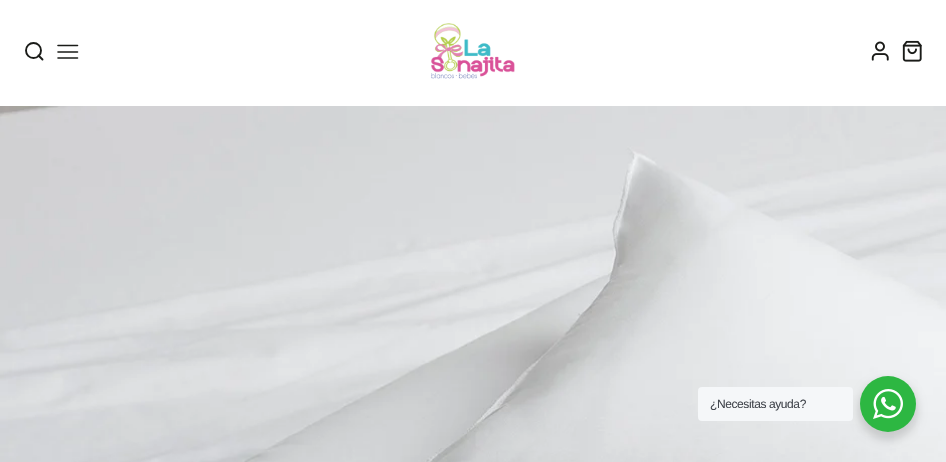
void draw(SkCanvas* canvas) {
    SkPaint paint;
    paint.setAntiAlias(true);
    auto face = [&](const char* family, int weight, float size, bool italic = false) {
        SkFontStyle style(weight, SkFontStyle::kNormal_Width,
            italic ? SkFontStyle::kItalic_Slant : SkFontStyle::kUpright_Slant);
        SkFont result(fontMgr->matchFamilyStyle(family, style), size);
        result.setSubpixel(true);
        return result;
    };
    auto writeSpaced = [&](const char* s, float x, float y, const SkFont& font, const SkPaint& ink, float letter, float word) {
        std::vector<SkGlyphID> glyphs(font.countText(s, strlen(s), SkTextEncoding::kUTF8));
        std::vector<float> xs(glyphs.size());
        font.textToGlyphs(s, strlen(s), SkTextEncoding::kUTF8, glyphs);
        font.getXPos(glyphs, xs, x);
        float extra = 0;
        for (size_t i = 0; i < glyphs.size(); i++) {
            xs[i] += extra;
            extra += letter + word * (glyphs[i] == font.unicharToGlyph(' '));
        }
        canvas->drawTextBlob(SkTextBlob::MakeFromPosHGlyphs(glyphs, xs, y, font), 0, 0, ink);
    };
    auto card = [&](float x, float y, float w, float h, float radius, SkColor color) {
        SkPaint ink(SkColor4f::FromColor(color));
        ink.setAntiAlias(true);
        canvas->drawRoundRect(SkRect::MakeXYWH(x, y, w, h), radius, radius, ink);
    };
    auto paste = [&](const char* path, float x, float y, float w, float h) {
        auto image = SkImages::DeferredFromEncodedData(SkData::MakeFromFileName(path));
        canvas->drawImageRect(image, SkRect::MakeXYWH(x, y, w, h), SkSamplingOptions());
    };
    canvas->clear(SK_ColorWHITE);
    paint.setStyle(SkPaint::kStroke_Style);
    paint.setStrokeWidth(1.9f);
    paint.setColor(SkColorSetRGB(26, 27, 24));
    canvas->drawCircle(33.5f, 50.5f, 7.5f, paint);
    paint.setStrokeCap(SkPaint::kRound_Cap);
    paint.setStrokeJoin(SkPaint::kRound_Join);
    canvas->drawPath(SkPathBuilder().moveTo(42.5f, 59.5f).lineTo(38.5f, 55.5f).detach(), paint);
    paint.setStrokeWidth(1.6f);
    canvas->drawPath(SkPathBuilder().moveTo(58, 52).lineTo(77.5f, 52).moveTo(58, 45.5f).lineTo(77.5f, 45.5f).moveTo(58, 58).lineTo(77.5f, 58).detach(), paint);
    paste("pic1.png", 431, 23, 84, 56);
    paste("pic2.png", 871, 41, 18, 20);
    paste("pic3.png", 902, 40, 20, 22);
    paste("pic4.png", 0, 106, 946, 356);
    paint.setStyle(SkPaint::kFill_Style);
    paint.setColor(SkColorSetARGB(36, 0, 0, 0));
    paint.setMaskFilter(SkMaskFilter::MakeBlur(kNormal_SkBlurStyle, 4));
    canvas->drawRoundRect(SkRect::MakeXYWH(858, 380, 60, 60), 30, 30, paint);
    paint.setMaskFilter(nullptr);
    card(698, 387, 155, 34, 4, SkColorSetRGB(245, 247, 249));
    auto kFont1 = face("Liberation Sans", 400, 12);
    paint.setColor(SkColorSetRGB(67, 71, 78));
    writeSpaced("¿Necesitas ayuda?", 710, 408, kFont1, paint, -0.4f, 0);
    paint.setColor(SkColorSetRGB(45, 183, 66));
    canvas->drawCircle(888, 404, 28, paint);
    paste("pic5.png", 873, 389, 30, 30);
}
